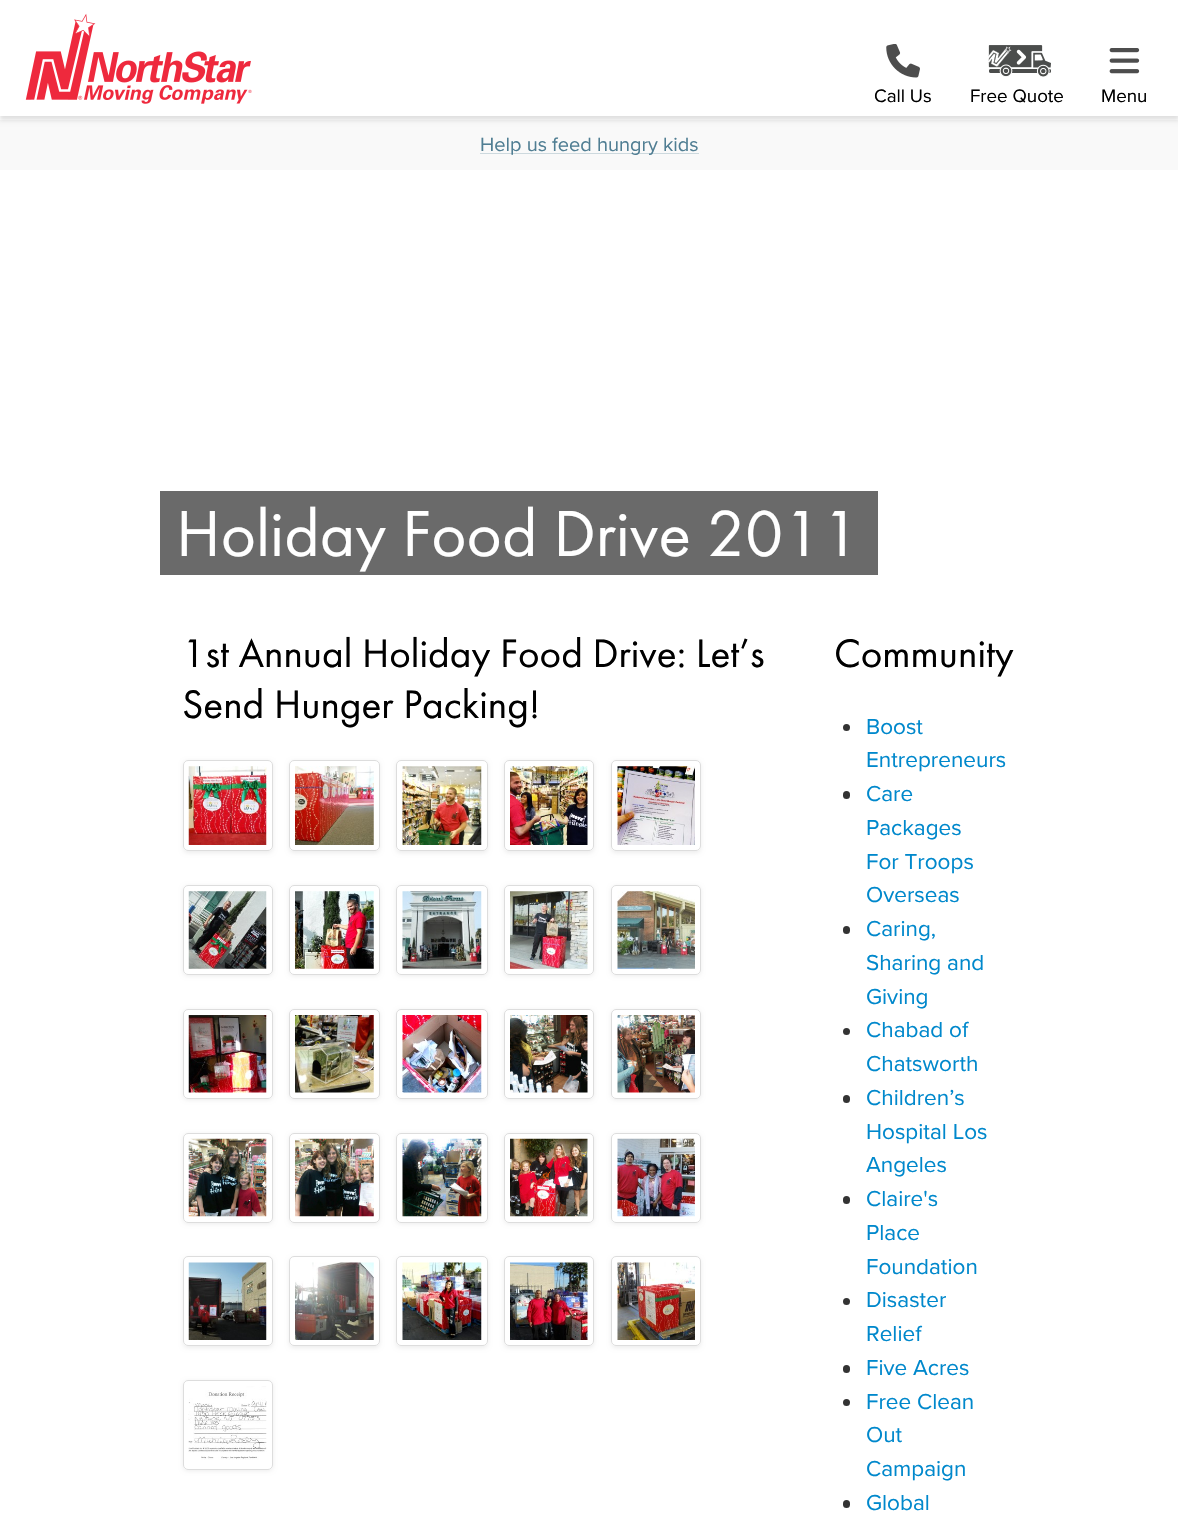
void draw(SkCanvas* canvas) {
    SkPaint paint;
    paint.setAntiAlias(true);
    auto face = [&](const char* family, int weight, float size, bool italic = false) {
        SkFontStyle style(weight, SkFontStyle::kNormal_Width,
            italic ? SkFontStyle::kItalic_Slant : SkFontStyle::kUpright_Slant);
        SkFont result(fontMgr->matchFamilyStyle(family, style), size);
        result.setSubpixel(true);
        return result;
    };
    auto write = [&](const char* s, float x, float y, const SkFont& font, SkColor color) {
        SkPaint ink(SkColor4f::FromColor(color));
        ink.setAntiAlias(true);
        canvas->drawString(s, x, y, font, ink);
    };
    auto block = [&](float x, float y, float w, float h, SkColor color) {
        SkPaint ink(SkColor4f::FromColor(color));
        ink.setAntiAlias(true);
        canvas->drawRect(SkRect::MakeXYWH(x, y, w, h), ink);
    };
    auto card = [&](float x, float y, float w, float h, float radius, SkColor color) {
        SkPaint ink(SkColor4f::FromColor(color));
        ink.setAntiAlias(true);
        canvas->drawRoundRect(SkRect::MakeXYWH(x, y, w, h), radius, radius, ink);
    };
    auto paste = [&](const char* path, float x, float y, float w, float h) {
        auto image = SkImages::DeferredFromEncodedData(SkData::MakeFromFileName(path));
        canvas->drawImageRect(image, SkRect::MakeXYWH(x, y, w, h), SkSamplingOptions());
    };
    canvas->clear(SK_ColorWHITE);
    {
        const SkColor colors[] = {SkColorSetRGB(244, 244, 244), SkColorSetRGB(249, 249, 249), SkColorSetRGB(249, 249, 249)};
        const float stops[] = {0, 0.15f, 1};
        const SkPoint ends[] = {{589, 120}, {589, 170}};
        paint.setShader(SkGradientShader::MakeLinear(ends, colors, stops, 3, SkTileMode::kClamp));
        paint.setAlpha(255);
    }
    canvas->drawRect(SkRect::MakeXYWH(0, 120, 1178, 50), paint);
    canvas->save();
    canvas->clipRect(SkRect::MakeXYWH(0, 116, 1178, 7));
    paint.setShader(nullptr);
    paint.setColor(SkColorSetARGB(128, 194, 194, 194));
    paint.setMaskFilter(SkMaskFilter::MakeBlur(kNormal_SkBlurStyle, 2));
    canvas->drawRect(SkRect::MakeXYWH(0, 4, 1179, 116), paint);
    paint.setMaskFilter(nullptr);
    canvas->restore();
    paste("pic1.png", 25, 13, 227, 91);
    paste("pic2.png", 886, 44, 34, 34);
    auto kFont1 = face("Proxima Nova", 400, 18.75f);
    write("Call Us", 874, 102, kFont1, SK_ColorBLACK);
    paste("pic3.png", 988, 45, 63, 32);
    write("Free Quote", 970, 102, kFont1, SK_ColorBLACK);
    paste("pic4.png", 1109, 48, 31, 26);
    write("Menu", 1101, 102, kFont1, SK_ColorBLACK);
    block(480, 153, 219, 1, SkColorSetRGB(205, 217, 222));
    auto kFont2 = face("Proxima Nova", 400, 20);
    write("Help us feed hungry kids", 480, 151, kFont2, SkColorSetRGB(80, 126, 147));
    block(160, 491, 718, 84, SkColorSetRGB(106, 106, 106));
    auto kFont3 = face("Futura PT", 400, 67.5f);
    write("Holiday Food Drive 2011", 176, 556, kFont3, SK_ColorWHITE);
    auto kFont4 = face("Futura PT", 400, 41.25f);
    write("1st Annual Holiday Food Drive: Let’s", 182, 667, kFont4, SK_ColorBLACK);
    write("Send Hunger Packing!", 182, 718, kFont4, SK_ColorBLACK);
    canvas->save();
    canvas->clipPath(SkPathBuilder(SkPathFillType::kEvenOdd).moveTo(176, 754).lineTo(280, 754).lineTo(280, 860).lineTo(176, 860).close().moveTo(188, 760).lineTo(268, 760).cubicTo(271, 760, 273, 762, 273, 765).lineTo(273, 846).cubicTo(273, 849, 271, 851, 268, 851).lineTo(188, 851).cubicTo(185, 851, 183, 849, 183, 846).lineTo(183, 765).cubicTo(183, 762, 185, 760, 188, 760).close().detach(), true);
    paint.setColor(SkColorSetARGB(18, 0, 0, 0));
    paint.setMaskFilter(SkMaskFilter::MakeBlur(kNormal_SkBlurStyle, 2));
    canvas->drawRoundRect(SkRect::MakeXYWH(183, 761, 90, 92), 5, 5, paint);
    paint.setMaskFilter(nullptr);
    canvas->restore();
    paint.setStyle(SkPaint::kStroke_Style);
    paint.setStrokeWidth(1);
    paint.setColor(SkColorSetRGB(221, 221, 221));
    canvas->drawRoundRect(SkRect::MakeXYWH(183.5f, 760.5f, 89, 90), 4.5f, 4.5f, paint);
    paste("pic5.png", 188, 766, 79, 79);
    canvas->save();
    canvas->clipPath(SkPathBuilder(SkPathFillType::kEvenOdd).moveTo(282, 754).lineTo(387, 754).lineTo(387, 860).lineTo(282, 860).close().moveTo(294, 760).lineTo(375, 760).cubicTo(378, 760, 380, 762, 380, 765).lineTo(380, 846).cubicTo(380, 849, 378, 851, 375, 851).lineTo(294, 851).cubicTo(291, 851, 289, 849, 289, 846).lineTo(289, 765).cubicTo(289, 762, 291, 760, 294, 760).close().detach(), true);
    paint.setStyle(SkPaint::kFill_Style);
    paint.setColor(SkColorSetARGB(18, 0, 0, 0));
    paint.setMaskFilter(SkMaskFilter::MakeBlur(kNormal_SkBlurStyle, 2));
    canvas->drawRoundRect(SkRect::MakeXYWH(289, 761, 91, 92), 5, 5, paint);
    paint.setMaskFilter(nullptr);
    canvas->restore();
    paint.setStyle(SkPaint::kStroke_Style);
    paint.setColor(SkColorSetRGB(221, 221, 221));
    canvas->drawRoundRect(SkRect::MakeXYWH(289.5f, 760.5f, 90, 90), 4.5f, 4.5f, paint);
    paste("pic6.png", 295, 766, 79, 79);
    canvas->save();
    canvas->clipPath(SkPathBuilder(SkPathFillType::kEvenOdd).moveTo(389, 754).lineTo(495, 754).lineTo(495, 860).lineTo(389, 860).close().moveTo(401, 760).lineTo(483, 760).cubicTo(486, 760, 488, 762, 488, 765).lineTo(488, 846).cubicTo(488, 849, 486, 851, 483, 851).lineTo(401, 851).cubicTo(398, 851, 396, 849, 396, 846).lineTo(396, 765).cubicTo(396, 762, 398, 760, 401, 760).close().detach(), true);
    paint.setStyle(SkPaint::kFill_Style);
    paint.setColor(SkColorSetARGB(18, 0, 0, 0));
    paint.setMaskFilter(SkMaskFilter::MakeBlur(kNormal_SkBlurStyle, 2));
    canvas->drawRoundRect(SkRect::MakeXYWH(396, 761, 92, 92), 5, 5, paint);
    paint.setMaskFilter(nullptr);
    canvas->restore();
    paint.setStyle(SkPaint::kStroke_Style);
    paint.setColor(SkColorSetRGB(221, 221, 221));
    canvas->drawRoundRect(SkRect::MakeXYWH(396.5f, 760.5f, 91, 90), 4.5f, 4.5f, paint);
    paste("pic7.png", 402, 766, 80, 79);
    canvas->save();
    canvas->clipPath(SkPathBuilder(SkPathFillType::kEvenOdd).moveTo(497, 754).lineTo(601, 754).lineTo(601, 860).lineTo(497, 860).close().moveTo(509, 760).lineTo(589, 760).cubicTo(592, 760, 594, 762, 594, 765).lineTo(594, 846).cubicTo(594, 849, 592, 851, 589, 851).lineTo(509, 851).cubicTo(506, 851, 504, 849, 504, 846).lineTo(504, 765).cubicTo(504, 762, 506, 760, 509, 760).close().detach(), true);
    paint.setStyle(SkPaint::kFill_Style);
    paint.setColor(SkColorSetARGB(18, 0, 0, 0));
    paint.setMaskFilter(SkMaskFilter::MakeBlur(kNormal_SkBlurStyle, 2));
    canvas->drawRoundRect(SkRect::MakeXYWH(504, 761, 90, 92), 5, 5, paint);
    paint.setMaskFilter(nullptr);
    canvas->restore();
    paint.setStyle(SkPaint::kStroke_Style);
    paint.setColor(SkColorSetRGB(221, 221, 221));
    canvas->drawRoundRect(SkRect::MakeXYWH(504.5f, 760.5f, 89, 90), 4.5f, 4.5f, paint);
    paste("pic8.png", 510, 766, 78, 79);
    canvas->save();
    canvas->clipPath(SkPathBuilder(SkPathFillType::kEvenOdd).moveTo(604, 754).lineTo(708, 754).lineTo(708, 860).lineTo(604, 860).close().moveTo(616, 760).lineTo(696, 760).cubicTo(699, 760, 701, 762, 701, 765).lineTo(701, 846).cubicTo(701, 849, 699, 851, 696, 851).lineTo(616, 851).cubicTo(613, 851, 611, 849, 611, 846).lineTo(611, 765).cubicTo(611, 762, 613, 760, 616, 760).close().detach(), true);
    paint.setStyle(SkPaint::kFill_Style);
    paint.setColor(SkColorSetARGB(18, 0, 0, 0));
    paint.setMaskFilter(SkMaskFilter::MakeBlur(kNormal_SkBlurStyle, 2));
    canvas->drawRoundRect(SkRect::MakeXYWH(611, 761, 90, 92), 5, 5, paint);
    paint.setMaskFilter(nullptr);
    canvas->restore();
    paint.setStyle(SkPaint::kStroke_Style);
    paint.setColor(SkColorSetRGB(221, 221, 221));
    canvas->drawRoundRect(SkRect::MakeXYWH(611.5f, 760.5f, 89, 90), 4.5f, 4.5f, paint);
    paste("pic9.png", 617, 766, 78, 79);
    canvas->save();
    canvas->clipPath(SkPathBuilder(SkPathFillType::kEvenOdd).moveTo(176, 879).lineTo(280, 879).lineTo(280, 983).lineTo(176, 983).close().moveTo(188, 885).lineTo(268, 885).cubicTo(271, 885, 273, 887, 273, 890).lineTo(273, 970).cubicTo(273, 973, 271, 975, 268, 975).lineTo(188, 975).cubicTo(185, 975, 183, 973, 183, 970).lineTo(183, 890).cubicTo(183, 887, 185, 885, 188, 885).close().detach(), true);
    paint.setStyle(SkPaint::kFill_Style);
    paint.setColor(SkColorSetARGB(18, 0, 0, 0));
    paint.setMaskFilter(SkMaskFilter::MakeBlur(kNormal_SkBlurStyle, 2));
    canvas->drawRoundRect(SkRect::MakeXYWH(183, 886, 90, 90), 5, 5, paint);
    paint.setMaskFilter(nullptr);
    canvas->restore();
    paint.setStyle(SkPaint::kStroke_Style);
    paint.setColor(SkColorSetRGB(221, 221, 221));
    canvas->drawRoundRect(SkRect::MakeXYWH(183.5f, 885.5f, 89, 89), 4.5f, 4.5f, paint);
    paste("pic10.png", 188, 891, 79, 78);
    canvas->save();
    canvas->clipPath(SkPathBuilder(SkPathFillType::kEvenOdd).moveTo(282, 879).lineTo(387, 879).lineTo(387, 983).lineTo(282, 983).close().moveTo(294, 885).lineTo(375, 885).cubicTo(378, 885, 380, 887, 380, 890).lineTo(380, 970).cubicTo(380, 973, 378, 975, 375, 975).lineTo(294, 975).cubicTo(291, 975, 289, 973, 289, 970).lineTo(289, 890).cubicTo(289, 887, 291, 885, 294, 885).close().detach(), true);
    paint.setStyle(SkPaint::kFill_Style);
    paint.setColor(SkColorSetARGB(18, 0, 0, 0));
    paint.setMaskFilter(SkMaskFilter::MakeBlur(kNormal_SkBlurStyle, 2));
    canvas->drawRoundRect(SkRect::MakeXYWH(289, 886, 91, 90), 5, 5, paint);
    paint.setMaskFilter(nullptr);
    canvas->restore();
    paint.setStyle(SkPaint::kStroke_Style);
    paint.setColor(SkColorSetRGB(221, 221, 221));
    canvas->drawRoundRect(SkRect::MakeXYWH(289.5f, 885.5f, 90, 89), 4.5f, 4.5f, paint);
    paste("pic11.png", 295, 891, 79, 78);
    canvas->save();
    canvas->clipPath(SkPathBuilder(SkPathFillType::kEvenOdd).moveTo(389, 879).lineTo(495, 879).lineTo(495, 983).lineTo(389, 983).close().moveTo(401, 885).lineTo(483, 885).cubicTo(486, 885, 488, 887, 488, 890).lineTo(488, 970).cubicTo(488, 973, 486, 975, 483, 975).lineTo(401, 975).cubicTo(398, 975, 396, 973, 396, 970).lineTo(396, 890).cubicTo(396, 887, 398, 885, 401, 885).close().detach(), true);
    paint.setStyle(SkPaint::kFill_Style);
    paint.setColor(SkColorSetARGB(18, 0, 0, 0));
    paint.setMaskFilter(SkMaskFilter::MakeBlur(kNormal_SkBlurStyle, 2));
    canvas->drawRoundRect(SkRect::MakeXYWH(396, 886, 92, 90), 5, 5, paint);
    paint.setMaskFilter(nullptr);
    canvas->restore();
    paint.setStyle(SkPaint::kStroke_Style);
    paint.setColor(SkColorSetRGB(221, 221, 221));
    canvas->drawRoundRect(SkRect::MakeXYWH(396.5f, 885.5f, 91, 89), 4.5f, 4.5f, paint);
    paste("pic12.png", 402, 891, 80, 78);
    canvas->save();
    canvas->clipPath(SkPathBuilder(SkPathFillType::kEvenOdd).moveTo(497, 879).lineTo(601, 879).lineTo(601, 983).lineTo(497, 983).close().moveTo(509, 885).lineTo(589, 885).cubicTo(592, 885, 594, 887, 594, 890).lineTo(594, 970).cubicTo(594, 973, 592, 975, 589, 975).lineTo(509, 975).cubicTo(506, 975, 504, 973, 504, 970).lineTo(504, 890).cubicTo(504, 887, 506, 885, 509, 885).close().detach(), true);
    paint.setStyle(SkPaint::kFill_Style);
    paint.setColor(SkColorSetARGB(18, 0, 0, 0));
    paint.setMaskFilter(SkMaskFilter::MakeBlur(kNormal_SkBlurStyle, 2));
    canvas->drawRoundRect(SkRect::MakeXYWH(504, 886, 90, 90), 5, 5, paint);
    paint.setMaskFilter(nullptr);
    canvas->restore();
    paint.setStyle(SkPaint::kStroke_Style);
    paint.setColor(SkColorSetRGB(221, 221, 221));
    canvas->drawRoundRect(SkRect::MakeXYWH(504.5f, 885.5f, 89, 89), 4.5f, 4.5f, paint);
    paste("pic13.png", 510, 891, 78, 78);
    canvas->save();
    canvas->clipPath(SkPathBuilder(SkPathFillType::kEvenOdd).moveTo(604, 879).lineTo(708, 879).lineTo(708, 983).lineTo(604, 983).close().moveTo(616, 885).lineTo(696, 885).cubicTo(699, 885, 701, 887, 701, 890).lineTo(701, 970).cubicTo(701, 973, 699, 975, 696, 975).lineTo(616, 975).cubicTo(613, 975, 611, 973, 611, 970).lineTo(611, 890).cubicTo(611, 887, 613, 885, 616, 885).close().detach(), true);
    paint.setStyle(SkPaint::kFill_Style);
    paint.setColor(SkColorSetARGB(18, 0, 0, 0));
    paint.setMaskFilter(SkMaskFilter::MakeBlur(kNormal_SkBlurStyle, 2));
    canvas->drawRoundRect(SkRect::MakeXYWH(611, 886, 90, 90), 5, 5, paint);
    paint.setMaskFilter(nullptr);
    canvas->restore();
    paint.setStyle(SkPaint::kStroke_Style);
    paint.setColor(SkColorSetRGB(221, 221, 221));
    canvas->drawRoundRect(SkRect::MakeXYWH(611.5f, 885.5f, 89, 89), 4.5f, 4.5f, paint);
    paste("pic14.png", 617, 891, 78, 78);
    canvas->save();
    canvas->clipPath(SkPathBuilder(SkPathFillType::kEvenOdd).moveTo(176, 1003).lineTo(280, 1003).lineTo(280, 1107).lineTo(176, 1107).close().moveTo(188, 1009).lineTo(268, 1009).cubicTo(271, 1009, 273, 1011, 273, 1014).lineTo(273, 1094).cubicTo(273, 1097, 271, 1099, 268, 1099).lineTo(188, 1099).cubicTo(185, 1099, 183, 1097, 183, 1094).lineTo(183, 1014).cubicTo(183, 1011, 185, 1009, 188, 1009).close().detach(), true);
    paint.setStyle(SkPaint::kFill_Style);
    paint.setColor(SkColorSetARGB(18, 0, 0, 0));
    paint.setMaskFilter(SkMaskFilter::MakeBlur(kNormal_SkBlurStyle, 2));
    canvas->drawRoundRect(SkRect::MakeXYWH(183, 1010, 90, 90), 5, 5, paint);
    paint.setMaskFilter(nullptr);
    canvas->restore();
    paint.setStyle(SkPaint::kStroke_Style);
    paint.setColor(SkColorSetRGB(221, 221, 221));
    canvas->drawRoundRect(SkRect::MakeXYWH(183.5f, 1009.5f, 89, 89), 4.5f, 4.5f, paint);
    paste("pic15.png", 188, 1015, 79, 78);
    canvas->save();
    canvas->clipPath(SkPathBuilder(SkPathFillType::kEvenOdd).moveTo(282, 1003).lineTo(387, 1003).lineTo(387, 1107).lineTo(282, 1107).close().moveTo(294, 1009).lineTo(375, 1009).cubicTo(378, 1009, 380, 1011, 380, 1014).lineTo(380, 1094).cubicTo(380, 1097, 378, 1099, 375, 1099).lineTo(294, 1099).cubicTo(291, 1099, 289, 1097, 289, 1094).lineTo(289, 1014).cubicTo(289, 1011, 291, 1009, 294, 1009).close().detach(), true);
    paint.setStyle(SkPaint::kFill_Style);
    paint.setColor(SkColorSetARGB(18, 0, 0, 0));
    paint.setMaskFilter(SkMaskFilter::MakeBlur(kNormal_SkBlurStyle, 2));
    canvas->drawRoundRect(SkRect::MakeXYWH(289, 1010, 91, 90), 5, 5, paint);
    paint.setMaskFilter(nullptr);
    canvas->restore();
    paint.setStyle(SkPaint::kStroke_Style);
    paint.setColor(SkColorSetRGB(221, 221, 221));
    canvas->drawRoundRect(SkRect::MakeXYWH(289.5f, 1009.5f, 90, 89), 4.5f, 4.5f, paint);
    paste("pic16.png", 295, 1015, 79, 78);
    canvas->save();
    canvas->clipPath(SkPathBuilder(SkPathFillType::kEvenOdd).moveTo(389, 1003).lineTo(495, 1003).lineTo(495, 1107).lineTo(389, 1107).close().moveTo(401, 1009).lineTo(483, 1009).cubicTo(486, 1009, 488, 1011, 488, 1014).lineTo(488, 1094).cubicTo(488, 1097, 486, 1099, 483, 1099).lineTo(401, 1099).cubicTo(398, 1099, 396, 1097, 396, 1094).lineTo(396, 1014).cubicTo(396, 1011, 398, 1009, 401, 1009).close().detach(), true);
    paint.setStyle(SkPaint::kFill_Style);
    paint.setColor(SkColorSetARGB(18, 0, 0, 0));
    paint.setMaskFilter(SkMaskFilter::MakeBlur(kNormal_SkBlurStyle, 2));
    canvas->drawRoundRect(SkRect::MakeXYWH(396, 1010, 92, 90), 5, 5, paint);
    paint.setMaskFilter(nullptr);
    canvas->restore();
    paint.setStyle(SkPaint::kStroke_Style);
    paint.setColor(SkColorSetRGB(221, 221, 221));
    canvas->drawRoundRect(SkRect::MakeXYWH(396.5f, 1009.5f, 91, 89), 4.5f, 4.5f, paint);
    paste("pic17.png", 402, 1015, 80, 78);
    canvas->save();
    canvas->clipPath(SkPathBuilder(SkPathFillType::kEvenOdd).moveTo(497, 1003).lineTo(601, 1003).lineTo(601, 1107).lineTo(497, 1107).close().moveTo(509, 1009).lineTo(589, 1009).cubicTo(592, 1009, 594, 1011, 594, 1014).lineTo(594, 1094).cubicTo(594, 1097, 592, 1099, 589, 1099).lineTo(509, 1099).cubicTo(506, 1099, 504, 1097, 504, 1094).lineTo(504, 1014).cubicTo(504, 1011, 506, 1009, 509, 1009).close().detach(), true);
    paint.setStyle(SkPaint::kFill_Style);
    paint.setColor(SkColorSetARGB(18, 0, 0, 0));
    paint.setMaskFilter(SkMaskFilter::MakeBlur(kNormal_SkBlurStyle, 2));
    canvas->drawRoundRect(SkRect::MakeXYWH(504, 1010, 90, 90), 5, 5, paint);
    paint.setMaskFilter(nullptr);
    canvas->restore();
    paint.setStyle(SkPaint::kStroke_Style);
    paint.setColor(SkColorSetRGB(221, 221, 221));
    canvas->drawRoundRect(SkRect::MakeXYWH(504.5f, 1009.5f, 89, 89), 4.5f, 4.5f, paint);
    paste("pic18.png", 510, 1015, 78, 78);
    canvas->save();
    canvas->clipPath(SkPathBuilder(SkPathFillType::kEvenOdd).moveTo(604, 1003).lineTo(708, 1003).lineTo(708, 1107).lineTo(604, 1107).close().moveTo(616, 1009).lineTo(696, 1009).cubicTo(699, 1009, 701, 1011, 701, 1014).lineTo(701, 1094).cubicTo(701, 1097, 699, 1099, 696, 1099).lineTo(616, 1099).cubicTo(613, 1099, 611, 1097, 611, 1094).lineTo(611, 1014).cubicTo(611, 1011, 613, 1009, 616, 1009).close().detach(), true);
    paint.setStyle(SkPaint::kFill_Style);
    paint.setColor(SkColorSetARGB(18, 0, 0, 0));
    paint.setMaskFilter(SkMaskFilter::MakeBlur(kNormal_SkBlurStyle, 2));
    canvas->drawRoundRect(SkRect::MakeXYWH(611, 1010, 90, 90), 5, 5, paint);
    paint.setMaskFilter(nullptr);
    canvas->restore();
    paint.setStyle(SkPaint::kStroke_Style);
    paint.setColor(SkColorSetRGB(221, 221, 221));
    canvas->drawRoundRect(SkRect::MakeXYWH(611.5f, 1009.5f, 89, 89), 4.5f, 4.5f, paint);
    paste("pic19.png", 617, 1015, 78, 78);
    canvas->save();
    canvas->clipPath(SkPathBuilder(SkPathFillType::kEvenOdd).moveTo(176, 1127).lineTo(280, 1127).lineTo(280, 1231).lineTo(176, 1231).close().moveTo(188, 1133).lineTo(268, 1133).cubicTo(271, 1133, 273, 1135, 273, 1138).lineTo(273, 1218).cubicTo(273, 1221, 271, 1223, 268, 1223).lineTo(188, 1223).cubicTo(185, 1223, 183, 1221, 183, 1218).lineTo(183, 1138).cubicTo(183, 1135, 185, 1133, 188, 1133).close().detach(), true);
    paint.setStyle(SkPaint::kFill_Style);
    paint.setColor(SkColorSetARGB(18, 0, 0, 0));
    paint.setMaskFilter(SkMaskFilter::MakeBlur(kNormal_SkBlurStyle, 2));
    canvas->drawRoundRect(SkRect::MakeXYWH(183, 1134, 90, 90), 5, 5, paint);
    paint.setMaskFilter(nullptr);
    canvas->restore();
    paint.setStyle(SkPaint::kStroke_Style);
    paint.setColor(SkColorSetRGB(221, 221, 221));
    canvas->drawRoundRect(SkRect::MakeXYWH(183.5f, 1133.5f, 89, 89), 4.5f, 4.5f, paint);
    paste("pic20.png", 188, 1138, 79, 79);
    canvas->save();
    canvas->clipPath(SkPathBuilder(SkPathFillType::kEvenOdd).moveTo(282, 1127).lineTo(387, 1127).lineTo(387, 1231).lineTo(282, 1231).close().moveTo(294, 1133).lineTo(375, 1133).cubicTo(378, 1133, 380, 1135, 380, 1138).lineTo(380, 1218).cubicTo(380, 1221, 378, 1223, 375, 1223).lineTo(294, 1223).cubicTo(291, 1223, 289, 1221, 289, 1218).lineTo(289, 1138).cubicTo(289, 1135, 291, 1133, 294, 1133).close().detach(), true);
    paint.setStyle(SkPaint::kFill_Style);
    paint.setColor(SkColorSetARGB(18, 0, 0, 0));
    paint.setMaskFilter(SkMaskFilter::MakeBlur(kNormal_SkBlurStyle, 2));
    canvas->drawRoundRect(SkRect::MakeXYWH(289, 1134, 91, 90), 5, 5, paint);
    paint.setMaskFilter(nullptr);
    canvas->restore();
    paint.setStyle(SkPaint::kStroke_Style);
    paint.setColor(SkColorSetRGB(221, 221, 221));
    canvas->drawRoundRect(SkRect::MakeXYWH(289.5f, 1133.5f, 90, 89), 4.5f, 4.5f, paint);
    paste("pic21.png", 295, 1138, 79, 79);
    canvas->save();
    canvas->clipPath(SkPathBuilder(SkPathFillType::kEvenOdd).moveTo(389, 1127).lineTo(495, 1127).lineTo(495, 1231).lineTo(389, 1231).close().moveTo(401, 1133).lineTo(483, 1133).cubicTo(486, 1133, 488, 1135, 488, 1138).lineTo(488, 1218).cubicTo(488, 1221, 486, 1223, 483, 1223).lineTo(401, 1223).cubicTo(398, 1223, 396, 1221, 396, 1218).lineTo(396, 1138).cubicTo(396, 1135, 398, 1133, 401, 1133).close().detach(), true);
    paint.setStyle(SkPaint::kFill_Style);
    paint.setColor(SkColorSetARGB(18, 0, 0, 0));
    paint.setMaskFilter(SkMaskFilter::MakeBlur(kNormal_SkBlurStyle, 2));
    canvas->drawRoundRect(SkRect::MakeXYWH(396, 1134, 92, 90), 5, 5, paint);
    paint.setMaskFilter(nullptr);
    canvas->restore();
    paint.setStyle(SkPaint::kStroke_Style);
    paint.setColor(SkColorSetRGB(221, 221, 221));
    canvas->drawRoundRect(SkRect::MakeXYWH(396.5f, 1133.5f, 91, 89), 4.5f, 4.5f, paint);
    paste("pic22.png", 402, 1138, 80, 79);
    canvas->save();
    canvas->clipPath(SkPathBuilder(SkPathFillType::kEvenOdd).moveTo(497, 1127).lineTo(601, 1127).lineTo(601, 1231).lineTo(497, 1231).close().moveTo(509, 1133).lineTo(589, 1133).cubicTo(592, 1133, 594, 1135, 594, 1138).lineTo(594, 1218).cubicTo(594, 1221, 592, 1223, 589, 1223).lineTo(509, 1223).cubicTo(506, 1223, 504, 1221, 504, 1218).lineTo(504, 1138).cubicTo(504, 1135, 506, 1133, 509, 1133).close().detach(), true);
    paint.setStyle(SkPaint::kFill_Style);
    paint.setColor(SkColorSetARGB(18, 0, 0, 0));
    paint.setMaskFilter(SkMaskFilter::MakeBlur(kNormal_SkBlurStyle, 2));
    canvas->drawRoundRect(SkRect::MakeXYWH(504, 1134, 90, 90), 5, 5, paint);
    paint.setMaskFilter(nullptr);
    canvas->restore();
    paint.setStyle(SkPaint::kStroke_Style);
    paint.setColor(SkColorSetRGB(221, 221, 221));
    canvas->drawRoundRect(SkRect::MakeXYWH(504.5f, 1133.5f, 89, 89), 4.5f, 4.5f, paint);
    paste("pic23.png", 510, 1138, 78, 79);
    canvas->save();
    canvas->clipPath(SkPathBuilder(SkPathFillType::kEvenOdd).moveTo(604, 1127).lineTo(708, 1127).lineTo(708, 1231).lineTo(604, 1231).close().moveTo(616, 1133).lineTo(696, 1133).cubicTo(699, 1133, 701, 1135, 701, 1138).lineTo(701, 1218).cubicTo(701, 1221, 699, 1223, 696, 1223).lineTo(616, 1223).cubicTo(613, 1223, 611, 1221, 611, 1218).lineTo(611, 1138).cubicTo(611, 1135, 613, 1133, 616, 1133).close().detach(), true);
    paint.setStyle(SkPaint::kFill_Style);
    paint.setColor(SkColorSetARGB(18, 0, 0, 0));
    paint.setMaskFilter(SkMaskFilter::MakeBlur(kNormal_SkBlurStyle, 2));
    canvas->drawRoundRect(SkRect::MakeXYWH(611, 1134, 90, 90), 5, 5, paint);
    paint.setMaskFilter(nullptr);
    canvas->restore();
    paint.setStyle(SkPaint::kStroke_Style);
    paint.setColor(SkColorSetRGB(221, 221, 221));
    canvas->drawRoundRect(SkRect::MakeXYWH(611.5f, 1133.5f, 89, 89), 4.5f, 4.5f, paint);
    paste("pic24.png", 617, 1138, 78, 79);
    canvas->save();
    canvas->clipPath(SkPathBuilder(SkPathFillType::kEvenOdd).moveTo(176, 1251).lineTo(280, 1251).lineTo(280, 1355).lineTo(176, 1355).close().moveTo(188, 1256).lineTo(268, 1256).cubicTo(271, 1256, 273, 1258, 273, 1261).lineTo(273, 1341).cubicTo(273, 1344, 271, 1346, 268, 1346).lineTo(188, 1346).cubicTo(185, 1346, 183, 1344, 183, 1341).lineTo(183, 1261).cubicTo(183, 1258, 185, 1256, 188, 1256).close().detach(), true);
    paint.setStyle(SkPaint::kFill_Style);
    paint.setColor(SkColorSetARGB(18, 0, 0, 0));
    paint.setMaskFilter(SkMaskFilter::MakeBlur(kNormal_SkBlurStyle, 2));
    canvas->drawRoundRect(SkRect::MakeXYWH(183, 1258, 90, 90), 5, 5, paint);
    paint.setMaskFilter(nullptr);
    canvas->restore();
    paint.setStyle(SkPaint::kStroke_Style);
    paint.setColor(SkColorSetRGB(221, 221, 221));
    canvas->drawRoundRect(SkRect::MakeXYWH(183.5f, 1256.5f, 89, 89), 4.5f, 4.5f, paint);
    paste("pic25.png", 188, 1262, 79, 78);
    canvas->save();
    canvas->clipPath(SkPathBuilder(SkPathFillType::kEvenOdd).moveTo(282, 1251).lineTo(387, 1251).lineTo(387, 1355).lineTo(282, 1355).close().moveTo(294, 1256).lineTo(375, 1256).cubicTo(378, 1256, 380, 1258, 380, 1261).lineTo(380, 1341).cubicTo(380, 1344, 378, 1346, 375, 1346).lineTo(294, 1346).cubicTo(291, 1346, 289, 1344, 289, 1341).lineTo(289, 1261).cubicTo(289, 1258, 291, 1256, 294, 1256).close().detach(), true);
    paint.setStyle(SkPaint::kFill_Style);
    paint.setColor(SkColorSetARGB(18, 0, 0, 0));
    paint.setMaskFilter(SkMaskFilter::MakeBlur(kNormal_SkBlurStyle, 2));
    canvas->drawRoundRect(SkRect::MakeXYWH(289, 1258, 91, 90), 5, 5, paint);
    paint.setMaskFilter(nullptr);
    canvas->restore();
    paint.setStyle(SkPaint::kStroke_Style);
    paint.setColor(SkColorSetRGB(221, 221, 221));
    canvas->drawRoundRect(SkRect::MakeXYWH(289.5f, 1256.5f, 90, 89), 4.5f, 4.5f, paint);
    paste("pic26.png", 295, 1262, 79, 78);
    canvas->save();
    canvas->clipPath(SkPathBuilder(SkPathFillType::kEvenOdd).moveTo(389, 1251).lineTo(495, 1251).lineTo(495, 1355).lineTo(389, 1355).close().moveTo(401, 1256).lineTo(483, 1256).cubicTo(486, 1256, 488, 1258, 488, 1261).lineTo(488, 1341).cubicTo(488, 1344, 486, 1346, 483, 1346).lineTo(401, 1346).cubicTo(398, 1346, 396, 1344, 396, 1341).lineTo(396, 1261).cubicTo(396, 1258, 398, 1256, 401, 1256).close().detach(), true);
    paint.setStyle(SkPaint::kFill_Style);
    paint.setColor(SkColorSetARGB(18, 0, 0, 0));
    paint.setMaskFilter(SkMaskFilter::MakeBlur(kNormal_SkBlurStyle, 2));
    canvas->drawRoundRect(SkRect::MakeXYWH(396, 1258, 92, 90), 5, 5, paint);
    paint.setMaskFilter(nullptr);
    canvas->restore();
    paint.setStyle(SkPaint::kStroke_Style);
    paint.setColor(SkColorSetRGB(221, 221, 221));
    canvas->drawRoundRect(SkRect::MakeXYWH(396.5f, 1256.5f, 91, 89), 4.5f, 4.5f, paint);
    paste("pic27.png", 402, 1262, 80, 78);
    canvas->save();
    canvas->clipPath(SkPathBuilder(SkPathFillType::kEvenOdd).moveTo(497, 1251).lineTo(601, 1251).lineTo(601, 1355).lineTo(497, 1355).close().moveTo(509, 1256).lineTo(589, 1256).cubicTo(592, 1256, 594, 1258, 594, 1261).lineTo(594, 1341).cubicTo(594, 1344, 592, 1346, 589, 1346).lineTo(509, 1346).cubicTo(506, 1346, 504, 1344, 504, 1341).lineTo(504, 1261).cubicTo(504, 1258, 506, 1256, 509, 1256).close().detach(), true);
    paint.setStyle(SkPaint::kFill_Style);
    paint.setColor(SkColorSetARGB(18, 0, 0, 0));
    paint.setMaskFilter(SkMaskFilter::MakeBlur(kNormal_SkBlurStyle, 2));
    canvas->drawRoundRect(SkRect::MakeXYWH(504, 1258, 90, 90), 5, 5, paint);
    paint.setMaskFilter(nullptr);
    canvas->restore();
    paint.setStyle(SkPaint::kStroke_Style);
    paint.setColor(SkColorSetRGB(221, 221, 221));
    canvas->drawRoundRect(SkRect::MakeXYWH(504.5f, 1256.5f, 89, 89), 4.5f, 4.5f, paint);
    paste("pic28.png", 510, 1262, 78, 78);
    canvas->save();
    canvas->clipPath(SkPathBuilder(SkPathFillType::kEvenOdd).moveTo(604, 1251).lineTo(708, 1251).lineTo(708, 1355).lineTo(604, 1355).close().moveTo(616, 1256).lineTo(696, 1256).cubicTo(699, 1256, 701, 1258, 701, 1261).lineTo(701, 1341).cubicTo(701, 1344, 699, 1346, 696, 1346).lineTo(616, 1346).cubicTo(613, 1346, 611, 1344, 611, 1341).lineTo(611, 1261).cubicTo(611, 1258, 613, 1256, 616, 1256).close().detach(), true);
    paint.setStyle(SkPaint::kFill_Style);
    paint.setColor(SkColorSetARGB(18, 0, 0, 0));
    paint.setMaskFilter(SkMaskFilter::MakeBlur(kNormal_SkBlurStyle, 2));
    canvas->drawRoundRect(SkRect::MakeXYWH(611, 1258, 90, 90), 5, 5, paint);
    paint.setMaskFilter(nullptr);
    canvas->restore();
    paint.setStyle(SkPaint::kStroke_Style);
    paint.setColor(SkColorSetRGB(221, 221, 221));
    canvas->drawRoundRect(SkRect::MakeXYWH(611.5f, 1256.5f, 89, 89), 4.5f, 4.5f, paint);
    paste("pic29.png", 617, 1262, 78, 78);
    canvas->save();
    canvas->clipPath(SkPathBuilder(SkPathFillType::kEvenOdd).moveTo(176, 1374).lineTo(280, 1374).lineTo(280, 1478).lineTo(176, 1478).close().moveTo(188, 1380).lineTo(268, 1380).cubicTo(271, 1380, 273, 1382, 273, 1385).lineTo(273, 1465).cubicTo(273, 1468, 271, 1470, 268, 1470).lineTo(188, 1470).cubicTo(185, 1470, 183, 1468, 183, 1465).lineTo(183, 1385).cubicTo(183, 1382, 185, 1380, 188, 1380).close().detach(), true);
    paint.setStyle(SkPaint::kFill_Style);
    paint.setColor(SkColorSetARGB(18, 0, 0, 0));
    paint.setMaskFilter(SkMaskFilter::MakeBlur(kNormal_SkBlurStyle, 2));
    canvas->drawRoundRect(SkRect::MakeXYWH(183, 1381, 90, 90), 5, 5, paint);
    paint.setMaskFilter(nullptr);
    canvas->restore();
    paint.setStyle(SkPaint::kStroke_Style);
    paint.setColor(SkColorSetRGB(221, 221, 221));
    canvas->drawRoundRect(SkRect::MakeXYWH(183.5f, 1380.5f, 89, 89), 4.5f, 4.5f, paint);
    paste("pic30.png", 188, 1386, 79, 74);
    write("Community", 834, 667, kFont4, SK_ColorBLACK);
    paint.setStyle(SkPaint::kFill_Style);
    paint.setColor(SkColorSetRGB(51, 51, 51));
    canvas->drawCircle(846.5f, 727.5f, 3.5f, paint);
    auto kFont5 = face("Proxima Nova", 400, 22.5f);
    write("Boost", 866, 734, kFont5, SkColorSetRGB(0, 136, 204));
    write("Entrepreneurs", 866, 767, kFont5, SkColorSetRGB(0, 136, 204));
    card(843, 791, 7, 8, 3.5f, SkColorSetRGB(51, 51, 51));
    write("Care", 866, 801, kFont5, SkColorSetRGB(0, 136, 204));
    write("Packages", 866, 835, kFont5, SkColorSetRGB(0, 136, 204));
    write("For Troops", 866, 869, kFont5, SkColorSetRGB(0, 136, 204));
    write("Overseas", 866, 902, kFont5, SkColorSetRGB(0, 136, 204));
    card(843, 926, 7, 8, 3.5f, SkColorSetRGB(51, 51, 51));
    write("Caring,", 866, 936, kFont5, SkColorSetRGB(0, 136, 204));
    write("Sharing and", 866, 970, kFont5, SkColorSetRGB(0, 136, 204));
    write("Giving", 866, 1004, kFont5, SkColorSetRGB(0, 136, 204));
    canvas->drawCircle(846.5f, 1031.5f, 3.5f, paint);
    write("Chabad of", 866, 1037, kFont5, SkColorSetRGB(0, 136, 204));
    write("Chatsworth", 866, 1071, kFont5, SkColorSetRGB(0, 136, 204));
    card(843, 1095, 7, 8, 3.5f, SkColorSetRGB(51, 51, 51));
    write("Children’s", 866, 1105, kFont5, SkColorSetRGB(0, 136, 204));
    write("Hospital Los", 866, 1139, kFont5, SkColorSetRGB(0, 136, 204));
    write("Angeles", 866, 1172, kFont5, SkColorSetRGB(0, 136, 204));
    card(843, 1196, 7, 8, 3.5f, SkColorSetRGB(51, 51, 51));
    write("Claire's", 866, 1206, kFont5, SkColorSetRGB(0, 136, 204));
    write("Place", 866, 1240, kFont5, SkColorSetRGB(0, 136, 204));
    write("Foundation", 866, 1274, kFont5, SkColorSetRGB(0, 136, 204));
    canvas->drawCircle(846.5f, 1301.5f, 3.5f, paint);
    write("Disaster", 866, 1307, kFont5, SkColorSetRGB(0, 136, 204));
    write("Relief", 866, 1341, kFont5, SkColorSetRGB(0, 136, 204));
    card(843, 1365, 7, 8, 3.5f, SkColorSetRGB(51, 51, 51));
    write("Five Acres", 866, 1375, kFont5, SkColorSetRGB(0, 136, 204));
    canvas->drawCircle(846.5f, 1402.5f, 3.5f, paint);
    write("Free Clean", 866, 1409, kFont5, SkColorSetRGB(0, 136, 204));
    write("Out", 866, 1442, kFont5, SkColorSetRGB(0, 136, 204));
    write("Campaign", 866, 1476, kFont5, SkColorSetRGB(0, 136, 204));
    card(843, 1500, 7, 8, 3.5f, SkColorSetRGB(51, 51, 51));
    write("Global", 866, 1510, kFont5, SkColorSetRGB(0, 136, 204));
}
